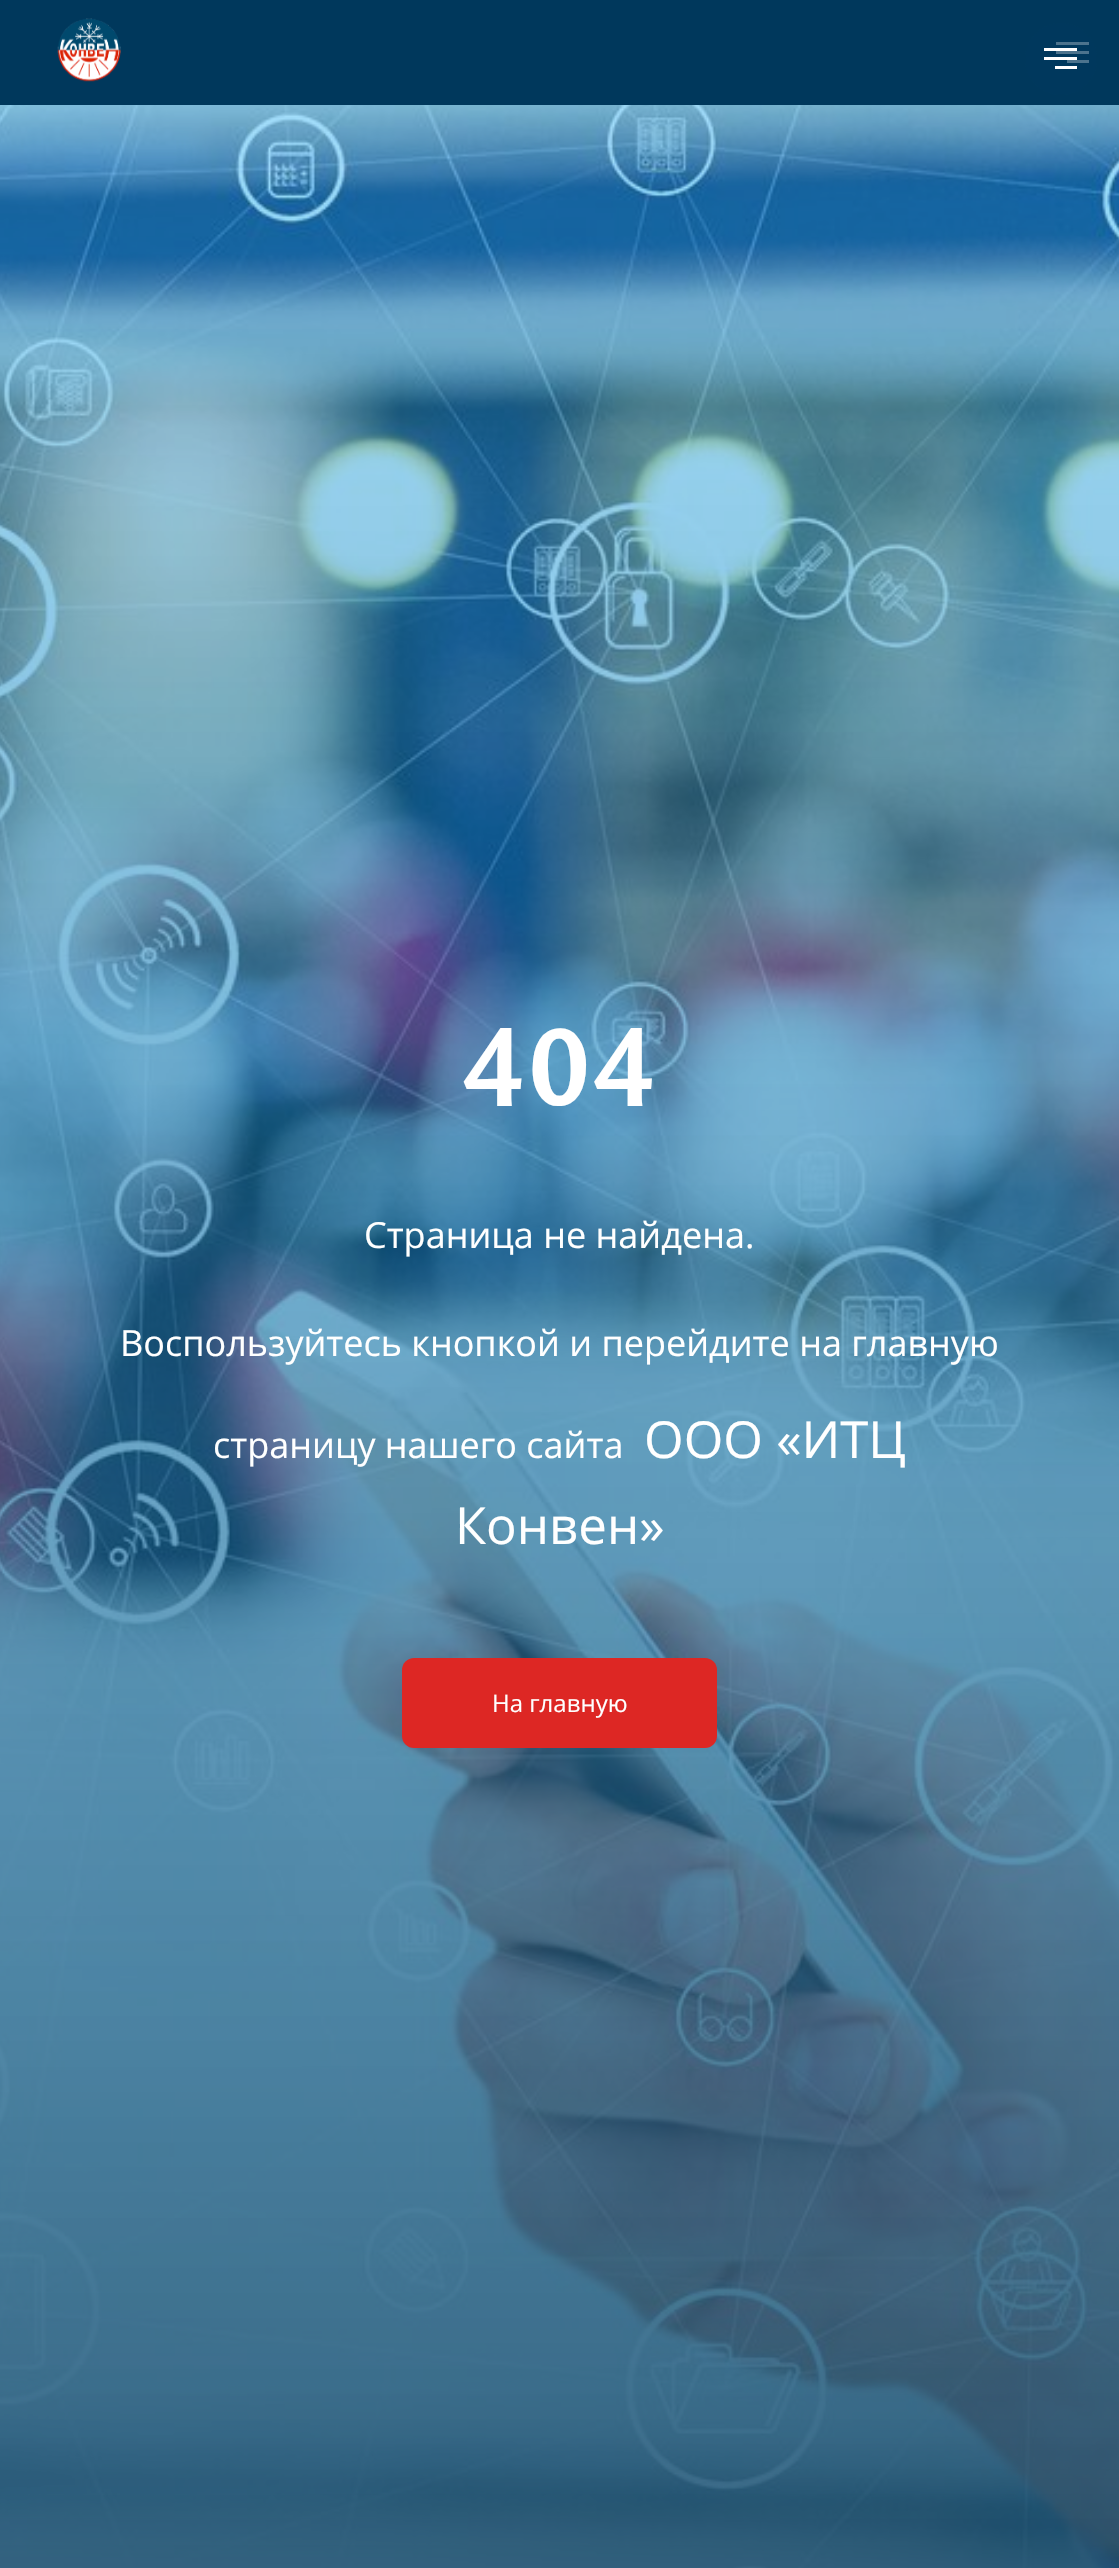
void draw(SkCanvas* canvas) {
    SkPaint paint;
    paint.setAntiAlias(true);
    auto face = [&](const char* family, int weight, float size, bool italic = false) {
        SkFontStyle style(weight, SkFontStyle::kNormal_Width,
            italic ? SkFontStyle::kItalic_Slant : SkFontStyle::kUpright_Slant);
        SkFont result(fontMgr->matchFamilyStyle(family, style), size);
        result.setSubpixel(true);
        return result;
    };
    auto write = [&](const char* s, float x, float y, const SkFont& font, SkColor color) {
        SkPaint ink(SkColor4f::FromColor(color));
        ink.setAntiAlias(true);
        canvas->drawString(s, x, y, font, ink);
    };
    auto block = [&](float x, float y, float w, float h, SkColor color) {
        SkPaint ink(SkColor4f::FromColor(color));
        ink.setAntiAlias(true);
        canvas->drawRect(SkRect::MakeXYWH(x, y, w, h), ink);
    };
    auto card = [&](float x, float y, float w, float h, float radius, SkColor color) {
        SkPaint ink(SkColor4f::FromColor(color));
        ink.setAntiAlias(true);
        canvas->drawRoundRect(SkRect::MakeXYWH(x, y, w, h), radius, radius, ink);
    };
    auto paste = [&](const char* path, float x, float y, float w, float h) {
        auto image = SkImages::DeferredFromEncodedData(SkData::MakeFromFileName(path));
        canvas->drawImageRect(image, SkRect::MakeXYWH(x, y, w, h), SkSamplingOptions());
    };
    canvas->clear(SK_ColorWHITE);
    block(0, 0, 1119, 105, SkColorSetRGB(0, 56, 92));
    paste("pic1.png", 57, 18, 64, 64);
    block(1056, 42, 33, 3, SK_ColorWHITE);
    block(1056, 51, 33, 3, SK_ColorWHITE);
    block(1067, 60, 22, 3, SK_ColorWHITE);
    paint.setColor(SkColorSetARGB(179, 0, 56, 92));
    canvas->drawCircle(1061, 59, 36, paint);
    block(1044, 48, 33, 3, SK_ColorWHITE);
    block(1044, 57, 33, 3, SK_ColorWHITE);
    block(1055, 66, 22, 3, SK_ColorWHITE);
    paste("pic2.png", 0, 105, 1119, 2463);
    auto kFont1 = face("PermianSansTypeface", 700, 108);
    write("404", 462, 1105, kFont1, SK_ColorWHITE);
    auto kFont2 = face("Open Sans", 400, 36);
    write("Страница не найдена.", 364, 1248, kFont2, SK_ColorWHITE);
    write("Воспользуйтесь кнопкой и перейдите на главную", 120, 1356, kFont2, SK_ColorWHITE);
    write("страницу нашего сайта", 213, 1458, kFont2, SK_ColorWHITE);
    auto kFont3 = face("Open Sans", 400, 51);
    write("ООО «ИТЦ", 644, 1458, kFont3, SK_ColorWHITE);
    write("Конвен»", 455, 1544, kFont3, SK_ColorWHITE);
    card(402, 1658, 315, 90, 12, SkColorSetRGB(221, 39, 36));
    auto kFont4 = face("Open Sans", 400, 24);
    write("На главную", 492, 1712, kFont4, SK_ColorWHITE);
}
